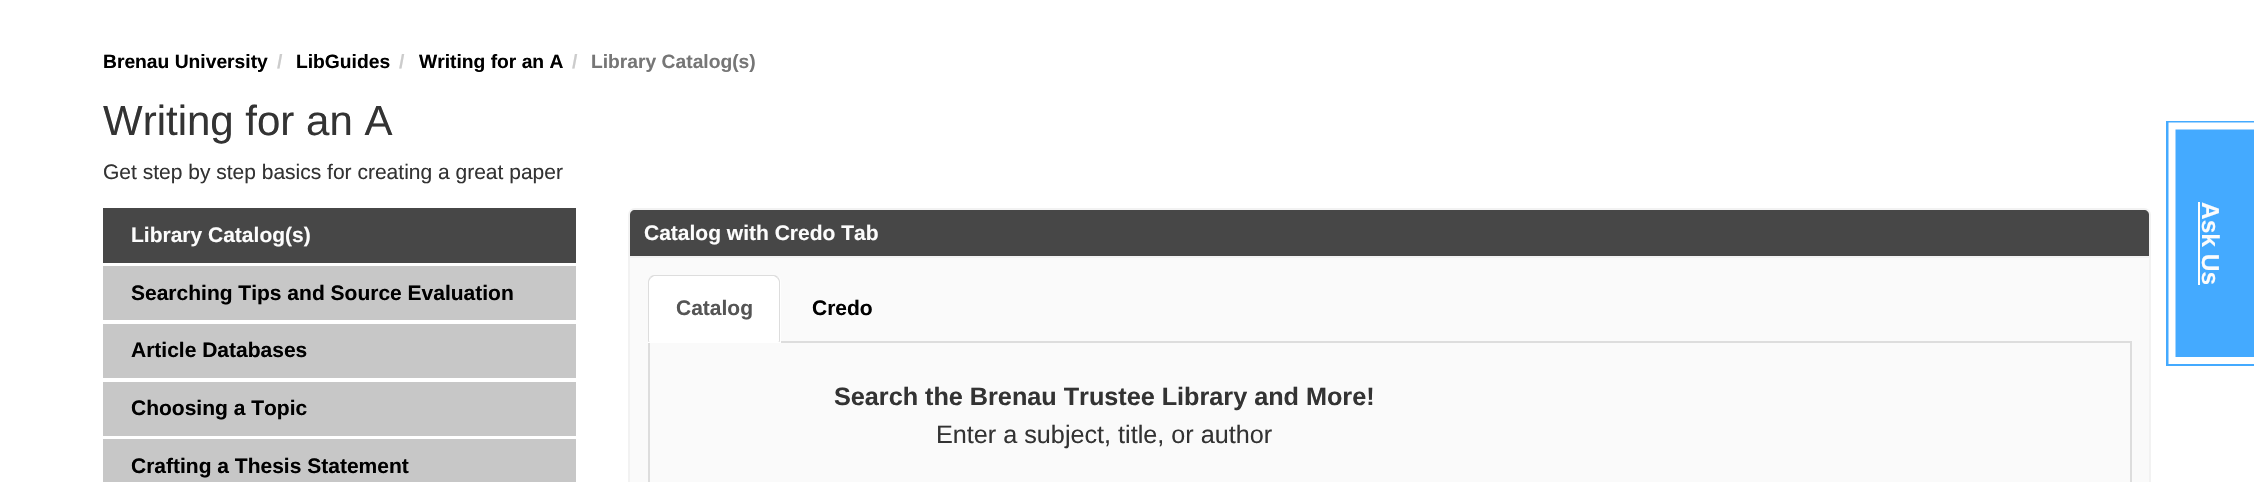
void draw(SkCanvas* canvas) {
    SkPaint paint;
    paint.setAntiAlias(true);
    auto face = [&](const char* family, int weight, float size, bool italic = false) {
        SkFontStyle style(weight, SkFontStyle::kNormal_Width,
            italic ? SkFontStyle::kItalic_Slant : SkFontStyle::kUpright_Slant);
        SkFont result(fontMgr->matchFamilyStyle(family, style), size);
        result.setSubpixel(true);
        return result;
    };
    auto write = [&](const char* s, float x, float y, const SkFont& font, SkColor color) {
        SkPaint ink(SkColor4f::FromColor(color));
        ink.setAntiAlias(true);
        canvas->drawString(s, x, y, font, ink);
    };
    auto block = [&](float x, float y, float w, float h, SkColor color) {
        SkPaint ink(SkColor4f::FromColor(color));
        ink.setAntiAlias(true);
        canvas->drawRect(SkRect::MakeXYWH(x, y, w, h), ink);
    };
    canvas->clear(SK_ColorWHITE);
    auto kFont1 = face("Liberation Sans", 700, 19.25f);
    write("Brenau University", 103, 68, kFont1, SK_ColorBLACK);
    write("/", 277, 68, kFont1, SkColorSetRGB(204, 204, 204));
    write("LibGuides", 296, 68, kFont1, SK_ColorBLACK);
    write("/", 399, 68, kFont1, SkColorSetRGB(204, 204, 204));
    write("Writing for an A", 419, 68, kFont1, SK_ColorBLACK);
    write("/", 572, 68, kFont1, SkColorSetRGB(204, 204, 204));
    write("Library Catalog(s)", 591, 68, kFont1, SkColorSetRGB(118, 118, 118));
    auto kFont2 = face("Liberation Sans", 400, 42);
    write("Writing for an A", 103, 135, kFont2, SkColorSetRGB(51, 51, 51));
    auto kFont3 = face("Liberation Sans", 400, 21);
    write("Get step by step basics for creating a great paper", 103, 179, kFont3, SkColorSetRGB(51, 51, 51));
    block(103, 208, 473, 55, SkColorSetRGB(71, 71, 71));
    auto kFont4 = face("Liberation Sans", 700, 21);
    write("Library Catalog(s)", 131, 242, kFont4, SkColorSetRGB(252, 252, 252));
    block(103, 266, 473, 54, SkColorSetRGB(199, 199, 199));
    write("Searching Tips and Source Evaluation", 131, 300, kFont4, SK_ColorBLACK);
    block(103, 324, 473, 54, SkColorSetRGB(199, 199, 199));
    write("Article Databases", 131, 357, kFont4, SK_ColorBLACK);
    block(103, 382, 473, 54, SkColorSetRGB(199, 199, 199));
    write("Choosing a Topic", 131, 415, kFont4, SK_ColorBLACK);
    block(103, 439, 473, 43, SkColorSetRGB(199, 199, 199));
    write("Crafting a Thesis Statement", 131, 473, kFont4, SK_ColorBLACK);
    paint.setColor(SkColorSetRGB(250, 250, 250));
    canvas->drawRoundRect(SkRect::MakeXYWH(629, 209, 1521, 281), 6, 6, paint);
    paint.setStyle(SkPaint::kStroke_Style);
    paint.setStrokeWidth(2);
    paint.setColor(SkColorSetRGB(242, 242, 242));
    canvas->drawRoundRect(SkRect::MakeXYWH(629, 209, 1521, 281), 6, 6, paint);
    paint.setStyle(SkPaint::kFill_Style);
    paint.setColor(SkColorSetRGB(71, 71, 71));
    canvas->drawPath(SkPathBuilder().moveTo(635, 210).lineTo(2144, 210).cubicTo(2147, 210, 2149, 212, 2149, 215).lineTo(2149, 257).lineTo(630, 257).lineTo(630, 215).cubicTo(630, 212, 632, 210, 635, 210).close().detach(), paint);
    block(630, 256, 1519, 2, SkColorSetRGB(242, 242, 242));
    write("Catalog with Credo Tab", 644, 240, kFont4, SkColorSetRGB(252, 252, 252));
    block(781, 341, 1351, 2, SkColorSetRGB(221, 221, 221));
    paint.setColor(SK_ColorWHITE);
    canvas->drawPath(SkPathBuilder().moveTo(655, 275).lineTo(774, 275).cubicTo(778, 275, 781, 278, 781, 282).lineTo(781, 343).lineTo(648, 343).lineTo(648, 282).cubicTo(648, 278, 651, 275, 655, 275).close().detach(), paint);
    paint.setColor(SkColorSetRGB(221, 221, 221));
    canvas->drawPath(SkPathBuilder().moveTo(654, 275).cubicTo(652, 275, 651, 276, 650, 277).lineTo(651, 278).lineTo(654, 276).lineTo(774, 276).lineTo(777, 278).lineTo(778, 277).cubicTo(777, 276, 776, 275, 774, 275).close().detach(), paint);
    canvas->drawPath(SkPathBuilder().moveTo(780, 342).lineTo(780, 282).cubicTo(780, 280, 779, 278, 778, 277).lineTo(777, 278).cubicTo(778, 279, 779, 281, 779, 282).lineTo(779, 341).lineTo(778, 341).close().detach(), paint);
    canvas->drawPath(SkPathBuilder().moveTo(650, 277).cubicTo(649, 278, 648, 280, 648, 282).lineTo(648, 342).lineTo(650, 341).lineTo(649, 341).lineTo(649, 282).cubicTo(649, 281, 650, 279, 651, 278).close().detach(), paint);
    write("Catalog", 676, 315, kFont4, SkColorSetRGB(85, 85, 85));
    write("Credo", 812, 315, kFont4, SK_ColorBLACK);
    block(2130, 343, 2, 139, SkColorSetRGB(221, 221, 221));
    block(648, 343, 2, 139, SkColorSetRGB(221, 221, 221));
    auto kFont5 = face("Liberation Sans", 700, 25.2f);
    write("Search the Brenau Trustee Library and More!", 834, 405, kFont5, SkColorSetRGB(51, 51, 51));
    auto kFont6 = face("Liberation Sans", 400, 25.2f);
    write("Enter a subject, title, or author", 936, 443, kFont6, SkColorSetRGB(51, 51, 51));
    block(2166, 121, 88, 245, SkColorSetRGB(68, 170, 255));
    paint.setStyle(SkPaint::kStroke_Style);
    paint.setStrokeWidth(7);
    paint.setColor(SK_ColorWHITE);
    canvas->drawPath(SkPathBuilder().moveTo(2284, 126).lineTo(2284, 360.5f).lineTo(2172, 360.5f).lineTo(2172, 126).close().detach(), paint);
    auto kFont7 = face("Liberation Sans", 700, 24.5f);
    canvas->save();
    canvas->rotate(90, 2202, 202);
    write("Ask Us", 2202, 202, kFont7, SkColorSetRGB(252, 252, 252));
    canvas->restore();
    block(2198, 202, 2, 83, SK_ColorWHITE);
}
